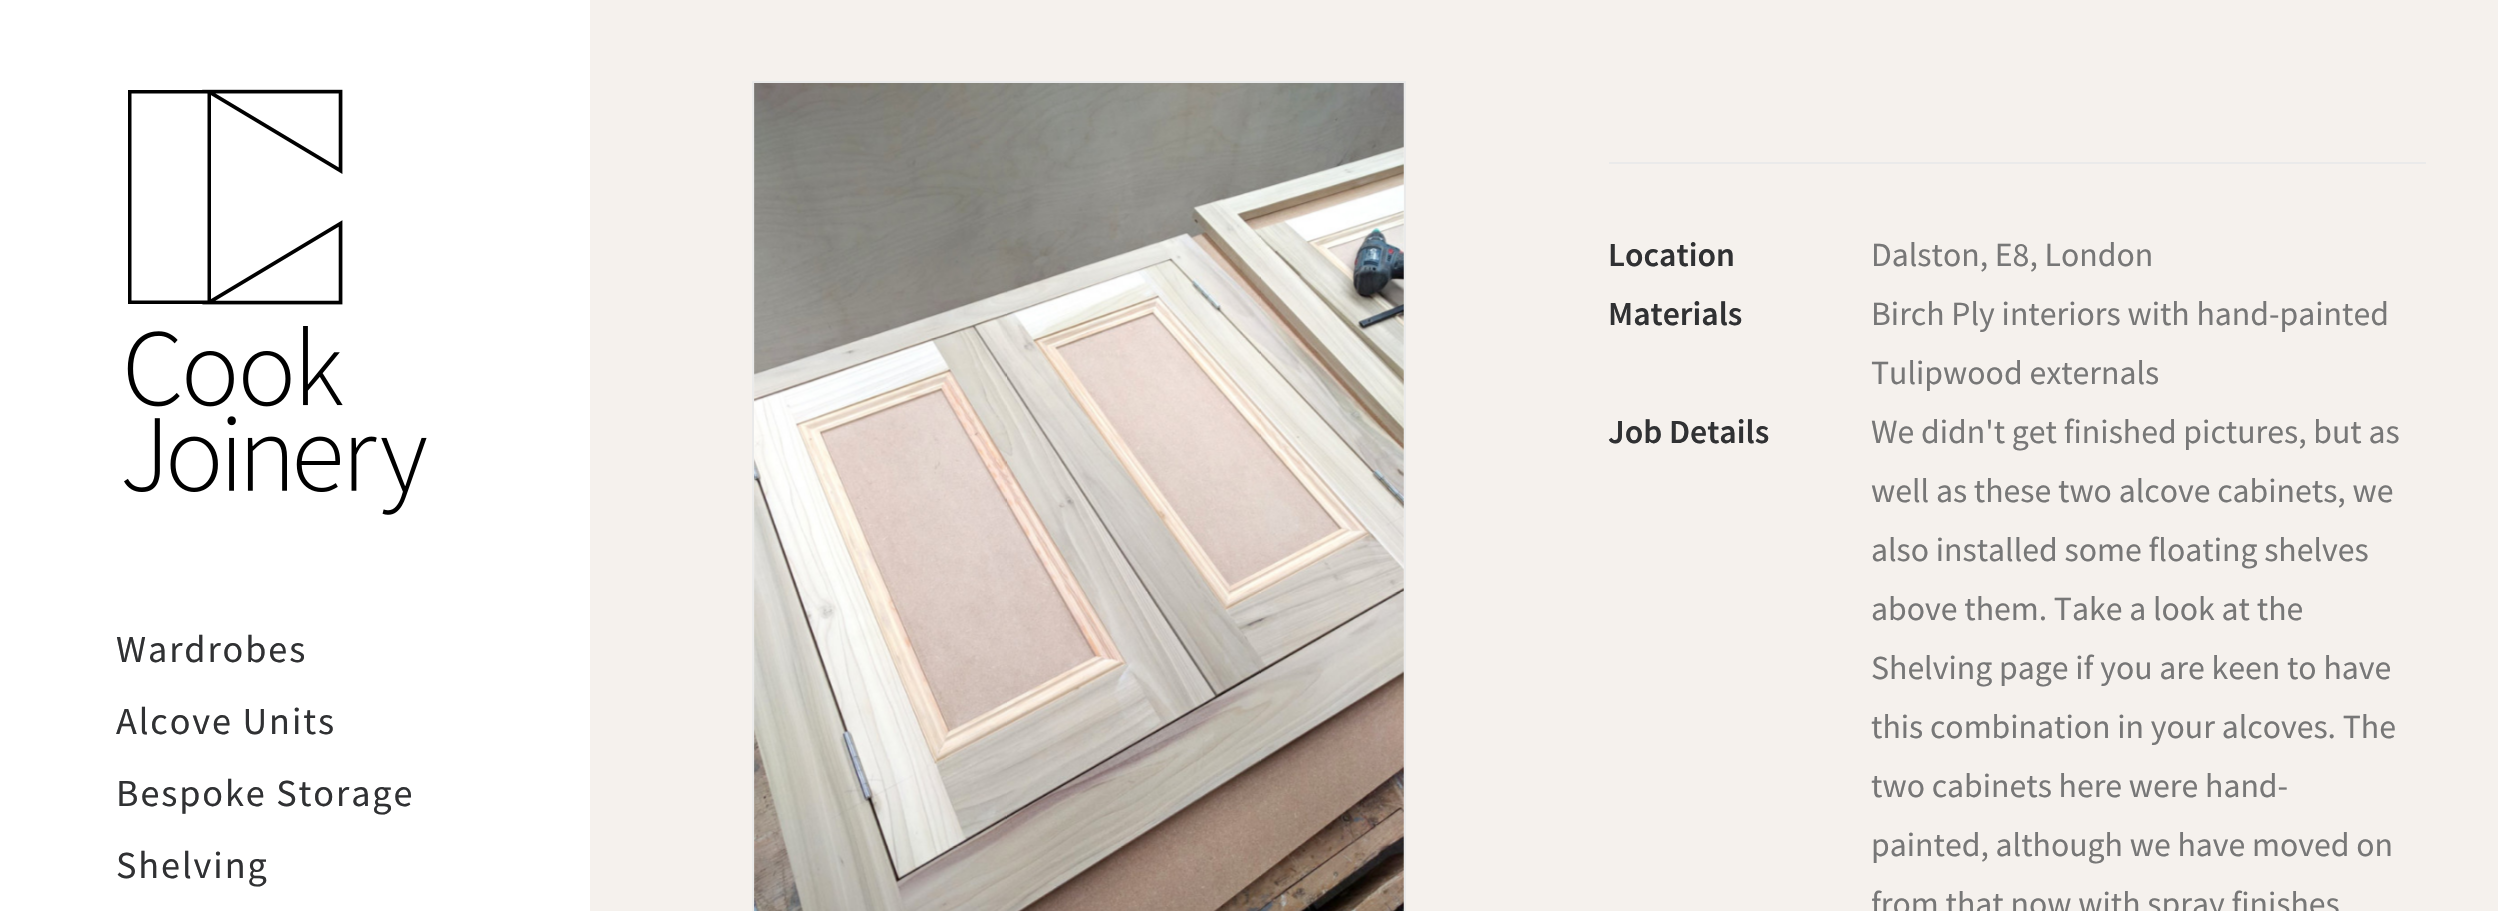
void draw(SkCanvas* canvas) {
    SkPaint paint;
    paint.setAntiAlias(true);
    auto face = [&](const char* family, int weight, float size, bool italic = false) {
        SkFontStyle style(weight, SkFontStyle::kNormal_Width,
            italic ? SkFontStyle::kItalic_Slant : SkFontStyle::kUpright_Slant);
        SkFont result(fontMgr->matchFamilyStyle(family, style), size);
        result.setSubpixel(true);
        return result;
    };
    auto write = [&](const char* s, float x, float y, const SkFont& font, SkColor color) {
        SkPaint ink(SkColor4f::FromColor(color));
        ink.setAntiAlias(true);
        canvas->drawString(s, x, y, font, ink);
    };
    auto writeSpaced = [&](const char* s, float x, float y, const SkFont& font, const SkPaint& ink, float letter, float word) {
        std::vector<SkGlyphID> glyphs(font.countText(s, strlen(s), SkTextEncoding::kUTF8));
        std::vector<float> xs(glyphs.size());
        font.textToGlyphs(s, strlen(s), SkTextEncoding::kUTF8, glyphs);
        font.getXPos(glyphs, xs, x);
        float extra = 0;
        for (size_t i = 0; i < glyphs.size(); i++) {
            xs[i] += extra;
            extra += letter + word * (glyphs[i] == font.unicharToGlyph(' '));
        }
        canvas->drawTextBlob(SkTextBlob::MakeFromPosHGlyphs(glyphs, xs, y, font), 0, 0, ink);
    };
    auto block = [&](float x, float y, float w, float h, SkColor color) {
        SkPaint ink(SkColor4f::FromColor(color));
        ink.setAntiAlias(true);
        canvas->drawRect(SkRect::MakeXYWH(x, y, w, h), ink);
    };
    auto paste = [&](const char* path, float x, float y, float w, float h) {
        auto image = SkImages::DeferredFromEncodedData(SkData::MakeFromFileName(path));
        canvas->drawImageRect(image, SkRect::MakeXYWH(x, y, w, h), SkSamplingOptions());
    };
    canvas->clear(SkColorSetRGB(245, 241, 237));
    block(0, 0, 590, 911, SK_ColorWHITE);
    paste("pic1.png", 124, 89, 303, 426);
    auto kFont1 = face("Source Sans Pro", 400, 38.25f);
    paint.setColor(SkColorSetRGB(48, 49, 51));
    writeSpaced("Wardrobes", 116, 662, kFont1, paint, 1.9f, 0);
    writeSpaced("Alcove Units", 116, 734, kFont1, paint, 1.9f, 0);
    writeSpaced("Bespoke Storage", 116, 806, kFont1, paint, 1.9f, 0);
    writeSpaced("Shelving", 116, 878, kFont1, paint, 1.9f, 0);
    paint.setStyle(SkPaint::kStroke_Style);
    paint.setStrokeWidth(2);
    paint.setColor(SkColorSetRGB(234, 234, 234));
    canvas->drawRect(SkRect::MakeXYWH(753, 82, 652, 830), paint);
    paste("pic2.png", 754, 83, 650, 828);
    block(1609, 162, 817, 2, SkColorSetRGB(234, 234, 234));
    auto kFont2 = face("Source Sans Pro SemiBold", 600, 33.75f);
    write("Location", 1608, 266, kFont2, SkColorSetRGB(48, 49, 51));
    auto kFont3 = face("Source Sans Pro", 400, 33.75f);
    write("Dalston, E8, London", 1871, 266, kFont3, SkColorSetRGB(119, 119, 119));
    write("Materials", 1608, 325, kFont2, SkColorSetRGB(48, 49, 51));
    write("Birch Ply interiors with hand-painted", 1871, 325, kFont3, SkColorSetRGB(119, 119, 119));
    write("Tulipwood externals", 1871, 384, kFont3, SkColorSetRGB(119, 119, 119));
    write("Job Details", 1608, 443, kFont2, SkColorSetRGB(48, 49, 51));
    write("We didn't get finished pictures, but as", 1871, 443, kFont3, SkColorSetRGB(119, 119, 119));
    write("well as these two alcove cabinets, we", 1871, 502, kFont3, SkColorSetRGB(119, 119, 119));
    write("also installed some floating shelves", 1871, 561, kFont3, SkColorSetRGB(119, 119, 119));
    write("above them. Take a look at the", 1871, 620, kFont3, SkColorSetRGB(119, 119, 119));
    write("Shelving page if you are keen to have", 1871, 679, kFont3, SkColorSetRGB(119, 119, 119));
    write("this combination in your alcoves. The", 1871, 738, kFont3, SkColorSetRGB(119, 119, 119));
    write("two cabinets here were hand-", 1871, 797, kFont3, SkColorSetRGB(119, 119, 119));
    write("painted, although we have moved on", 1871, 856, kFont3, SkColorSetRGB(119, 119, 119));
    write("from that now with spray finishes", 1871, 915, kFont3, SkColorSetRGB(119, 119, 119));
}
